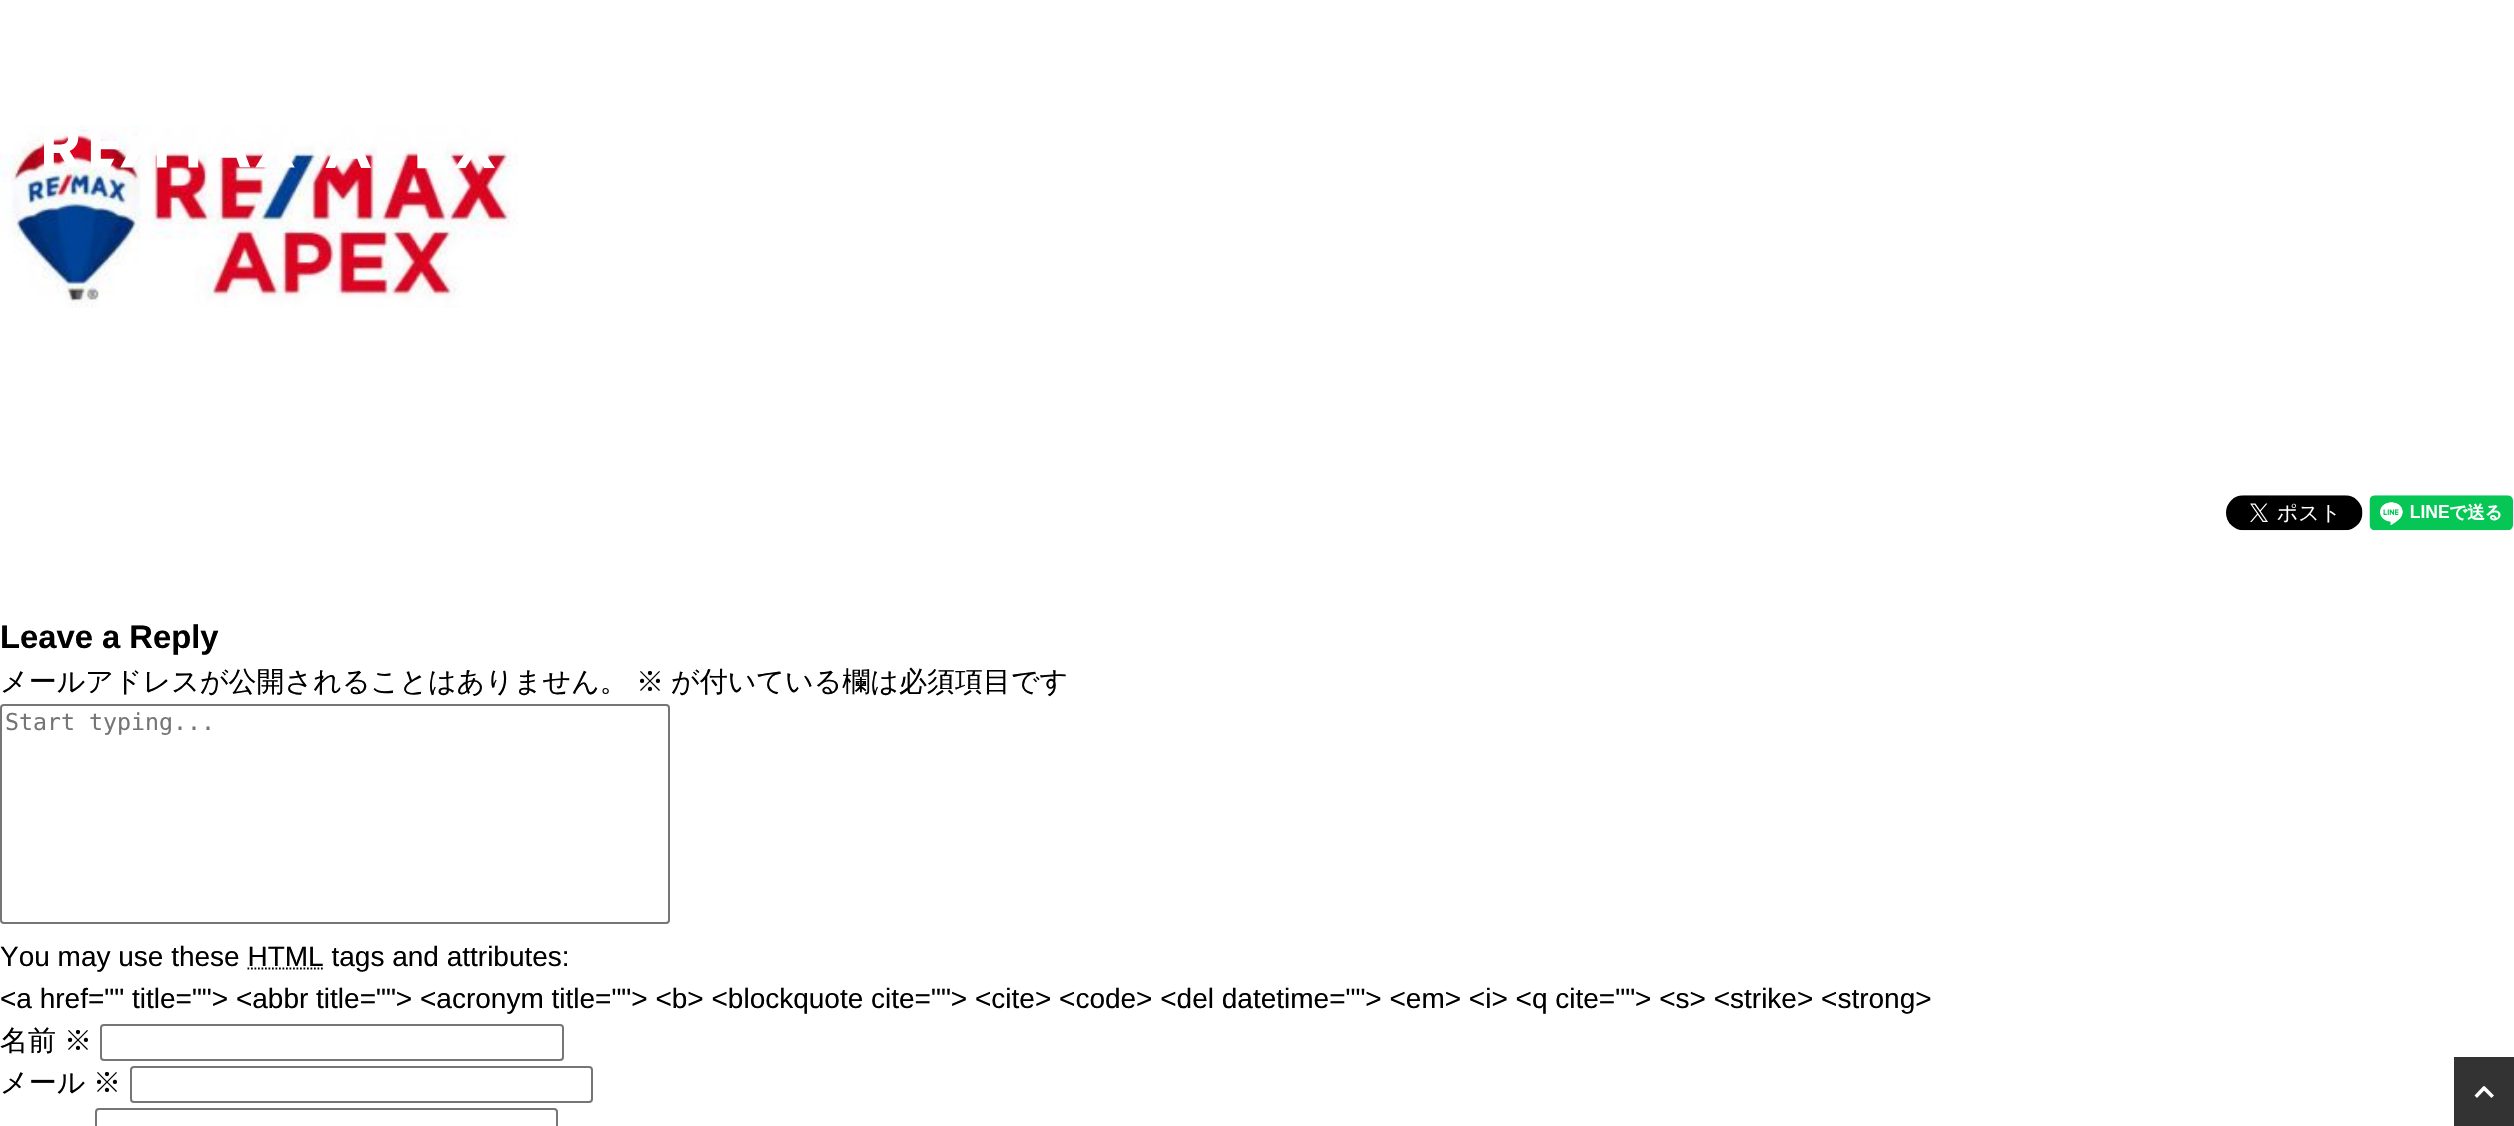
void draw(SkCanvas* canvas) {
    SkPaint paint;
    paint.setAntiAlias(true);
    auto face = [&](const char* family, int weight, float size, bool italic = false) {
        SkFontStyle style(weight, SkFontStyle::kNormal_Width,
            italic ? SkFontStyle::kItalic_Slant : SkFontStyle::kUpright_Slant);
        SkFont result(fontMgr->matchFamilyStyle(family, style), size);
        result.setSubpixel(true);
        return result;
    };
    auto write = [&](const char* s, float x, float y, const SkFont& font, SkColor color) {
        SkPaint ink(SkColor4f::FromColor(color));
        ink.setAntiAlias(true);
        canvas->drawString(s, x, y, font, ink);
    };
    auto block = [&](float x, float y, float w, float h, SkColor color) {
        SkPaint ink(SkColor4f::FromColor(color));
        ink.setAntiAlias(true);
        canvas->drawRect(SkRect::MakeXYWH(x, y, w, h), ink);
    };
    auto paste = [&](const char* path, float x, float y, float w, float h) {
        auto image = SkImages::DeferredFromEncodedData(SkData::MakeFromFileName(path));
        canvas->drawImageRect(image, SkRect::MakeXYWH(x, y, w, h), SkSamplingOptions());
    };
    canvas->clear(SK_ColorWHITE);
    paste("pic2.png", 0, 125, 518, 183);
    paste("pic1.png", 44, 125, 451, 44);
    paste("pic3.png", 2226, 495, 137, 36);
    paste("pic4.png", 2369, 495, 144, 36);
    auto kFont1 = face("Liberation Sans", 700, 32.75f);
    write("Leave a Reply", 0, 648, kFont1, SK_ColorBLACK);
    auto kFont2 = face("WenQuanYi Zen Hei", 500, 28);
    write("メールアドレスが公開されることはありません。", 0, 691, kFont2, SK_ColorBLACK);
    write("※", 636, 691, kFont2, SK_ColorBLACK);
    write("が付いている欄は必須項目です", 671, 691, kFont2, SK_ColorBLACK);
    paint.setStyle(SkPaint::kStroke_Style);
    paint.setStrokeWidth(2);
    paint.setColor(SkColorSetRGB(118, 118, 118));
    canvas->drawRoundRect(SkRect::MakeXYWH(1, 705, 668, 218), 3, 3, paint);
    auto kFont3 = face("DejaVu Sans Mono", 400, 23.25f);
    write("Start typing...", 5, 730, kFont3, SkColorSetRGB(117, 117, 117));
    auto kFont4 = face("Liberation Sans", 400, 28);
    write("You may use these HTML tags and attributes:", 0, 966, kFont4, SK_ColorBLACK);
    paint.setStrokeWidth(1.8f);
    paint.setColor(SK_ColorBLACK);
    paint.setPathEffect(SkDashPathEffect::Make({{1.75f, 1.75f}}, 0));
    canvas->drawPath(SkPathBuilder().moveTo(247.5f, 968.5f).lineTo(323.5f, 968.5f).detach(), paint);
    paint.setPathEffect(nullptr);
    write("<a href=\"\" title=\"\"> <abbr title=\"\"> <acronym title=\"\"> <b> <blockquote cite=\"\"> <cite> <code> <del datetime=\"\"> <em> <i> <q cite=\"\"> <s> <strike> <strong>", 0, 1008, kFont4, SK_ColorBLACK);
    write("名前", 0, 1050, kFont2, SK_ColorBLACK);
    write("※", 64, 1050, kFont2, SK_ColorBLACK);
    paint.setStrokeWidth(2);
    paint.setColor(SkColorSetRGB(118, 118, 118));
    canvas->drawRoundRect(SkRect::MakeXYWH(101, 1025, 462, 35), 3, 3, paint);
    write("メール", 0, 1092, kFont2, SK_ColorBLACK);
    write("※", 93, 1092, kFont2, SK_ColorBLACK);
    canvas->drawRoundRect(SkRect::MakeXYWH(131, 1067, 461, 35), 3, 3, paint);
    canvas->drawRoundRect(SkRect::MakeXYWH(96, 1109, 461, 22), 3, 3, paint);
    block(2454, 1057, 60, 69, SkColorSetRGB(51, 51, 51));
    paint.setStyle(SkPaint::kFill_Style);
    paint.setColor(SK_ColorWHITE);
    canvas->drawPath(SkPathBuilder().moveTo(2474.5f, 1095.5f).lineTo(2483.5f, 1086).lineTo(2486, 1088.5f).lineTo(2477, 1098).close().detach(), paint);
    canvas->drawPath(SkPathBuilder().moveTo(2484.5f, 1086).lineTo(2494, 1095.5f).lineTo(2491.5f, 1098).lineTo(2482, 1088.5f).close().detach(), paint);
}
